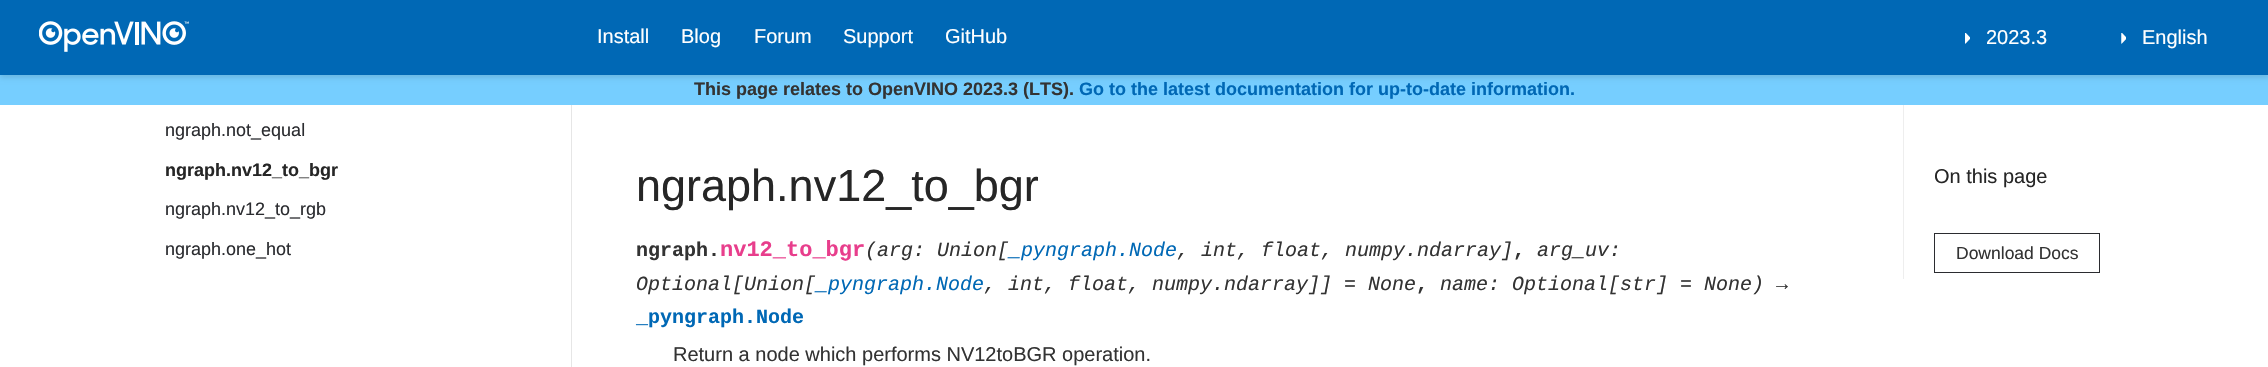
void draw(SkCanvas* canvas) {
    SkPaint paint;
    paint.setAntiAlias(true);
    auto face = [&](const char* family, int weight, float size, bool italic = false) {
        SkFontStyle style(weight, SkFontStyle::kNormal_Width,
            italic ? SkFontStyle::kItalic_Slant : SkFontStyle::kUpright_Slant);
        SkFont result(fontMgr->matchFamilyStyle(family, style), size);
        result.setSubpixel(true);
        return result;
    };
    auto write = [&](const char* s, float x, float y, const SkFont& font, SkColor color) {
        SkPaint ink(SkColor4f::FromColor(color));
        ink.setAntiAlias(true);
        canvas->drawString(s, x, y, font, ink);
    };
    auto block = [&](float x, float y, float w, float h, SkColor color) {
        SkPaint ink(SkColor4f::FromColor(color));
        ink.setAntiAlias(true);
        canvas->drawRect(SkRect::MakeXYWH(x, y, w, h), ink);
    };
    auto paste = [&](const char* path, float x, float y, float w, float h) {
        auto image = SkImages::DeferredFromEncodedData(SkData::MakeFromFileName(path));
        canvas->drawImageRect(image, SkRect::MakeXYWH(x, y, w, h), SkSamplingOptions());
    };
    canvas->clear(SK_ColorWHITE);
    block(571, 100, 1, 267, SkColorSetRGB(230, 230, 230));
    block(1903, 100, 1, 179, SkColorSetRGB(238, 238, 238));
    block(0, 75, 2268, 30, SkColorSetRGB(118, 206, 255));
    paint.setColor(SkColorSetARGB(28, 0, 0, 0));
    paint.setMaskFilter(SkMaskFilter::MakeBlur(kNormal_SkBlurStyle, 2.5f));
    canvas->drawRect(SkRect::MakeXYWH(0, 3, 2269, 75), paint);
    paint.setMaskFilter(nullptr);
    block(0, 0, 2268, 75, SkColorSetRGB(0, 104, 181));
    paste("pic1.png", 39, 21, 150, 31);
    auto kFont1 = face("Liberation Sans", 400, 20);
    write("Install", 597, 43, kFont1, SK_ColorWHITE);
    write("Blog", 681, 43, kFont1, SK_ColorWHITE);
    write("Forum", 754, 43, kFont1, SK_ColorWHITE);
    write("Support", 843, 43, kFont1, SK_ColorWHITE);
    write("GitHub", 945, 43, kFont1, SK_ColorWHITE);
    paste("pic2.png", 1965, 33, 5, 11);
    write("2023.3", 1986, 44, kFont1, SK_ColorWHITE);
    paste("pic3.png", 2121, 33, 5, 11);
    write("English", 2142, 44, kFont1, SK_ColorWHITE);
    auto kFont2 = face("Liberation Sans", 700, 18);
    write("This page relates to OpenVINO 2023.3 (LTS).", 694, 95, kFont2, SkColorSetRGB(51, 51, 51));
    write("Go to the latest documentation for up-to-date information.", 1079, 95, kFont2, SkColorSetRGB(0, 104, 181));
    auto kFont3 = face("Liberation Sans", 400, 18);
    write("ngraph.not_equal", 165, 136, kFont3, SkColorSetRGB(43, 44, 48));
    write("ngraph.nv12_to_bgr", 165, 176, kFont2, SkColorSetRGB(38, 38, 38));
    write("ngraph.nv12_to_rgb", 165, 215, kFont3, SkColorSetRGB(43, 44, 48));
    write("ngraph.one_hot", 165, 255, kFont3, SkColorSetRGB(43, 44, 48));
    auto kFont4 = face("Liberation Sans", 400, 45);
    write("ngraph.nv12_to_bgr", 636, 201, kFont4, SkColorSetRGB(38, 38, 38));
    auto kFont5 = face("Liberation Mono", 700, 20);
    write("ngraph.", 636, 256, kFont5, SkColorSetRGB(51, 51, 51));
    auto kFont6 = face("Liberation Mono", 700, 22);
    write("nv12_to_bgr", 720, 256, kFont6, SkColorSetRGB(232, 62, 140));
    auto kFont7 = face("Liberation Mono", 400, 20, true);
    write("(arg: Union[", 865, 256, kFont7, SkColorSetRGB(51, 51, 51));
    write("_pyngraph.Node", 1009, 256, kFont7, SkColorSetRGB(0, 104, 181));
    write(", int, float, numpy.ndarray]", 1177, 256, kFont7, SkColorSetRGB(51, 51, 51));
    write(",", 1513, 256, kFont5, SkColorSetRGB(51, 51, 51));
    write("arg_uv:", 1537, 256, kFont7, SkColorSetRGB(51, 51, 51));
    write("Optional[Union[", 636, 290, kFont7, SkColorSetRGB(51, 51, 51));
    write("_pyngraph.Node", 816, 290, kFont7, SkColorSetRGB(0, 104, 181));
    write(", int, float, numpy.ndarray]] = None", 984, 290, kFont7, SkColorSetRGB(51, 51, 51));
    write("name: Optional[str] = None)", 1440, 290, kFont7, SkColorSetRGB(51, 51, 51));
    write("→", 1776, 290, kFont5, SkColorSetRGB(51, 51, 51));
    write(",", 1416, 290, kFont5, SkColorSetRGB(51, 51, 51));
    write("_pyngraph.Node", 636, 323, kFont5, SkColorSetRGB(0, 104, 181));
    write("Return a node which performs NV12toBGR operation.", 673, 361, kFont1, SkColorSetRGB(51, 51, 51));
    write("On this page", 1934, 183, kFont1, SkColorSetRGB(38, 38, 38));
    paint.setStyle(SkPaint::kStroke_Style);
    paint.setStrokeWidth(1);
    paint.setColor(SkColorSetRGB(43, 44, 48));
    canvas->drawRect(SkRect::MakeXYWH(1934.5f, 233.5f, 165, 39), paint);
    auto kFont8 = face("Liberation Sans", 400, 17.5f);
    write("Download Docs", 1956, 259, kFont8, SkColorSetRGB(51, 51, 51));
}
